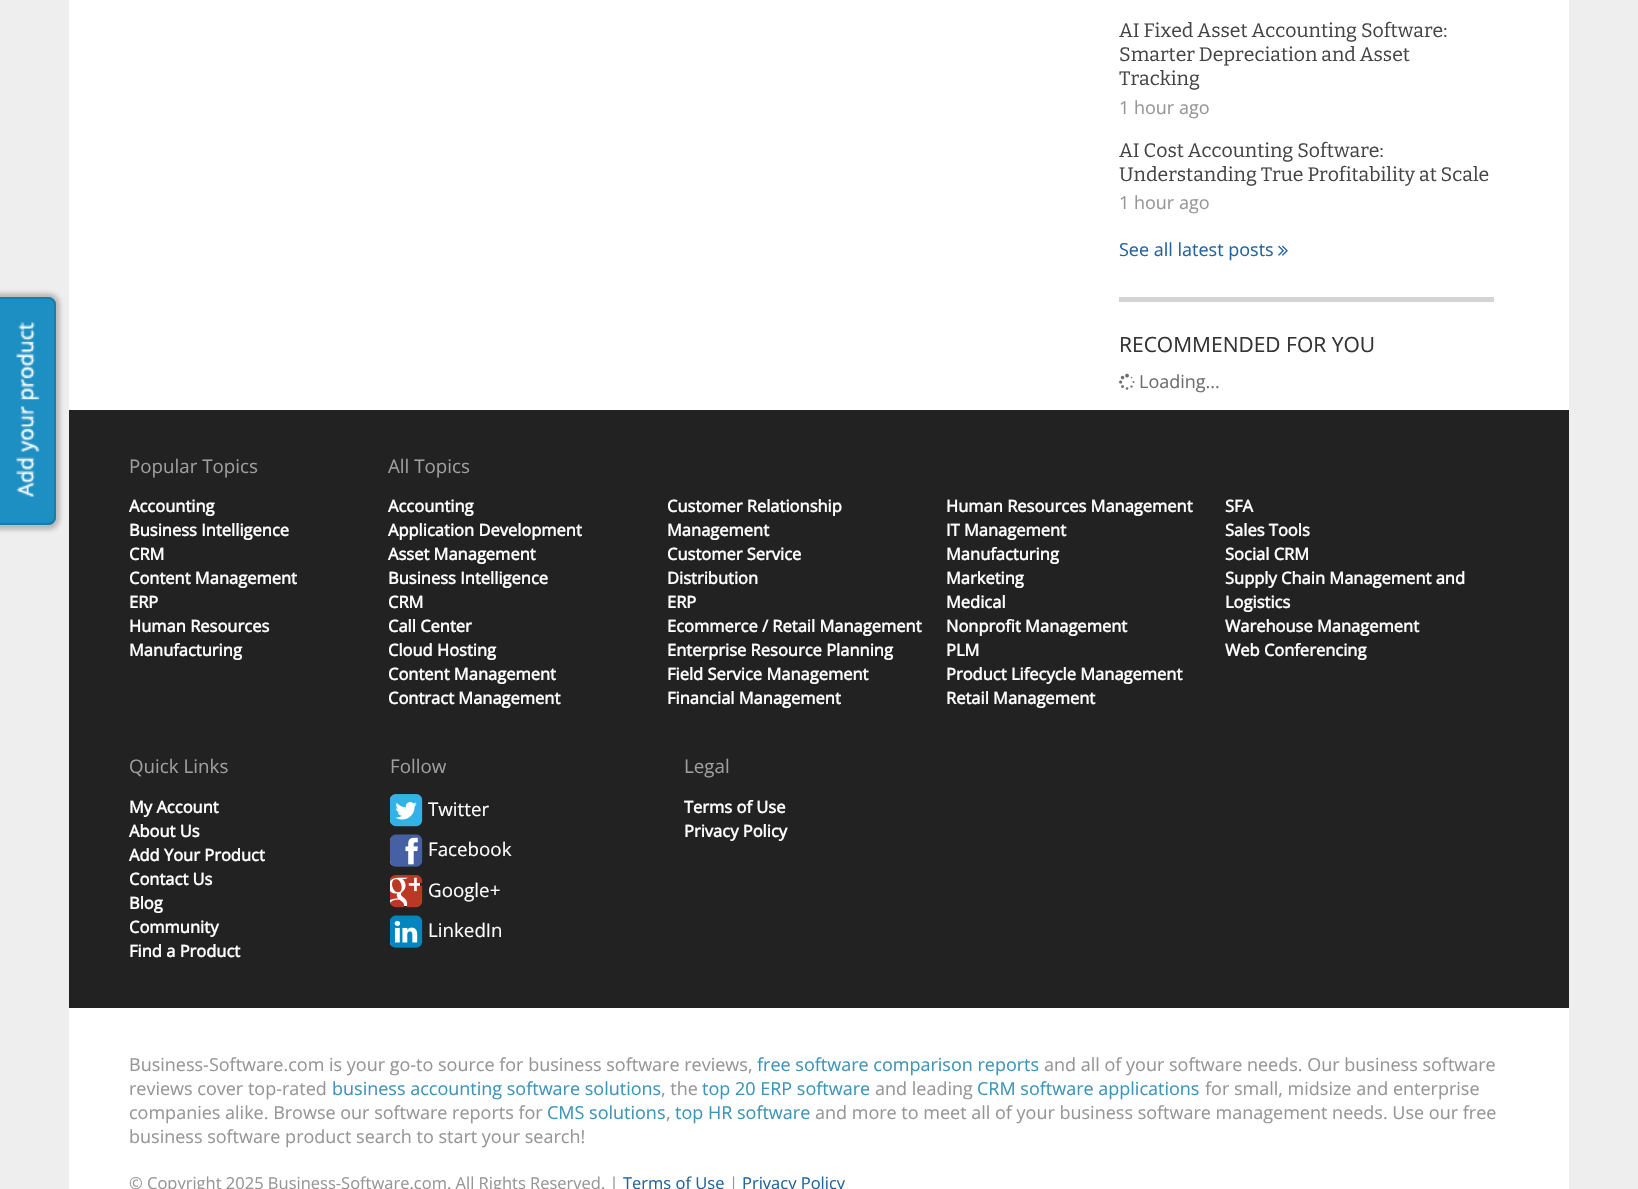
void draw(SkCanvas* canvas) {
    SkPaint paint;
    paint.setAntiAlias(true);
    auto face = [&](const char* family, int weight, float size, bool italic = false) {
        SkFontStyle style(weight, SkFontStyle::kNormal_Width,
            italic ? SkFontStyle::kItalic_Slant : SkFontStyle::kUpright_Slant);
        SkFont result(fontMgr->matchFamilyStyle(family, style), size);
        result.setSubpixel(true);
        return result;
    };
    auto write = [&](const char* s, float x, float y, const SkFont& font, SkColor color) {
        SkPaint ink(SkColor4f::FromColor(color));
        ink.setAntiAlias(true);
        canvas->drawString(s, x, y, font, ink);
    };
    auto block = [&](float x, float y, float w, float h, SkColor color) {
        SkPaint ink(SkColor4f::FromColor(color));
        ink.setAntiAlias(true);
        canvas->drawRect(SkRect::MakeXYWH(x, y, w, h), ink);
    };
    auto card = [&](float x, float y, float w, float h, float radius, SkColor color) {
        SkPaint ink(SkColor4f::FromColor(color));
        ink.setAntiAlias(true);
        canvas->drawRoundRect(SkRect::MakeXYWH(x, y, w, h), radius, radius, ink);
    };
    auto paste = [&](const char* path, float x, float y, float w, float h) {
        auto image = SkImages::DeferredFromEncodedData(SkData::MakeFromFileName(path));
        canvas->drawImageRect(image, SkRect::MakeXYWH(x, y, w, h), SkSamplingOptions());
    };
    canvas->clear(SkColorSetRGB(238, 238, 238));
    paint.setColor(SkColorSetRGB(187, 187, 187));
    paint.setMaskFilter(SkMaskFilter::MakeBlur(kNormal_SkBlurStyle, 2));
    canvas->drawRoundRect(SkRect::MakeXYWH(-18, 293, 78, 237), 12, 12, paint);
    paint.setMaskFilter(nullptr);
    paint.setColor(SkColorSetRGB(30, 143, 194));
    canvas->drawPath(SkPathBuilder().moveTo(-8, 297).lineTo(48, 297).cubicTo(52.5f, 297, 56, 300.5f, 56, 305).lineTo(56, 517).cubicTo(56, 521.5f, 52.5f, 525, 48, 525).lineTo(-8, 525).close().detach(), paint);
    paste("pic1.png", 16, 322, 24, 175);
    paint.setStyle(SkPaint::kStroke_Style);
    paint.setStrokeWidth(2);
    paint.setColor(SkColorSetRGB(26, 124, 168));
    canvas->drawPath(SkPathBuilder().moveTo(-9, 298).lineTo(48, 298).cubicTo(52, 298, 55, 301, 55, 305).lineTo(55, 517).cubicTo(55, 521, 52, 524, 48, 524).lineTo(-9, 524).close().detach(), paint);
    block(69, 0, 1500, 1189, SK_ColorWHITE);
    block(1119, 297, 375, 5, SkColorSetRGB(212, 212, 212));
    auto kFont1 = face("Bitter", 100, 19.5f);
    write("AI Fixed Asset Accounting Software:", 1119, 37, kFont1, SkColorSetRGB(68, 68, 68));
    write("Smarter Depreciation and Asset", 1119, 61, kFont1, SkColorSetRGB(68, 68, 68));
    write("Tracking", 1119, 85, kFont1, SkColorSetRGB(68, 68, 68));
    auto kFont2 = face("Open Sans", 400, 18);
    write("1 hour ago", 1119, 114, kFont2, SkColorSetRGB(150, 150, 150));
    write("AI Cost Accounting Software:", 1119, 157, kFont1, SkColorSetRGB(68, 68, 68));
    write("Understanding True Profitability at Scale", 1119, 181, kFont1, SkColorSetRGB(68, 68, 68));
    write("1 hour ago", 1119, 209, kFont2, SkColorSetRGB(150, 150, 150));
    write("See all latest posts", 1119, 256, kFont2, SkColorSetRGB(33, 99, 157));
    paste("pic2.png", 1278, 245, 10, 11);
    auto kFont3 = face("Open Sans", 400, 21);
    write("RECOMMENDED FOR YOU", 1119, 352, kFont3, SkColorSetRGB(51, 51, 51));
    paste("pic3.png", 1119, 373, 16, 17);
    write("Loading...", 1139, 388, kFont2, SkColorSetRGB(110, 110, 110));
    block(69, 410, 1500, 598, SkColorSetRGB(34, 34, 34));
    auto kFont4 = face("Open Sans", 400, 18.75f);
    write("Popular Topics", 129, 473, kFont4, SkColorSetRGB(158, 158, 158));
    auto kFont5 = face("Open Sans", 700, 16.5f);
    write("Accounting", 129, 512, kFont5, SK_ColorWHITE);
    write("Business Intelligence", 129, 536, kFont5, SK_ColorWHITE);
    write("CRM", 129, 560, kFont5, SK_ColorWHITE);
    write("Content Management", 129, 584, kFont5, SK_ColorWHITE);
    write("ERP", 129, 608, kFont5, SK_ColorWHITE);
    write("Human Resources", 129, 632, kFont5, SK_ColorWHITE);
    write("Manufacturing", 129, 656, kFont5, SK_ColorWHITE);
    write("All Topics", 388, 473, kFont4, SkColorSetRGB(158, 158, 158));
    write("Accounting", 388, 512, kFont5, SK_ColorWHITE);
    write("Application Development", 388, 536, kFont5, SK_ColorWHITE);
    write("Asset Management", 388, 560, kFont5, SK_ColorWHITE);
    write("Business Intelligence", 388, 584, kFont5, SK_ColorWHITE);
    write("CRM", 388, 608, kFont5, SK_ColorWHITE);
    write("Call Center", 388, 632, kFont5, SK_ColorWHITE);
    write("Cloud Hosting", 388, 656, kFont5, SK_ColorWHITE);
    write("Content Management", 388, 680, kFont5, SK_ColorWHITE);
    write("Contract Management", 388, 704, kFont5, SK_ColorWHITE);
    write("Customer Relationship", 667, 512, kFont5, SK_ColorWHITE);
    write("Management", 667, 536, kFont5, SK_ColorWHITE);
    write("Customer Service", 667, 560, kFont5, SK_ColorWHITE);
    write("Distribution", 667, 584, kFont5, SK_ColorWHITE);
    write("ERP", 667, 608, kFont5, SK_ColorWHITE);
    write("Ecommerce / Retail Management", 667, 632, kFont5, SK_ColorWHITE);
    write("Enterprise Resource Planning", 667, 656, kFont5, SK_ColorWHITE);
    write("Field Service Management", 667, 680, kFont5, SK_ColorWHITE);
    write("Financial Management", 667, 704, kFont5, SK_ColorWHITE);
    write("Human Resources Management", 946, 512, kFont5, SK_ColorWHITE);
    write("IT Management", 946, 536, kFont5, SK_ColorWHITE);
    write("Manufacturing", 946, 560, kFont5, SK_ColorWHITE);
    write("Marketing", 946, 584, kFont5, SK_ColorWHITE);
    write("Medical", 946, 608, kFont5, SK_ColorWHITE);
    write("Nonprofit Management", 946, 632, kFont5, SK_ColorWHITE);
    write("PLM", 946, 656, kFont5, SK_ColorWHITE);
    write("Product Lifecycle Management", 946, 680, kFont5, SK_ColorWHITE);
    write("Retail Management", 946, 704, kFont5, SK_ColorWHITE);
    write("SFA", 1225, 512, kFont5, SK_ColorWHITE);
    write("Sales Tools", 1225, 536, kFont5, SK_ColorWHITE);
    write("Social CRM", 1225, 560, kFont5, SK_ColorWHITE);
    write("Supply Chain Management and", 1225, 584, kFont5, SK_ColorWHITE);
    write("Logistics", 1225, 608, kFont5, SK_ColorWHITE);
    write("Warehouse Management", 1225, 632, kFont5, SK_ColorWHITE);
    write("Web Conferencing", 1225, 656, kFont5, SK_ColorWHITE);
    write("Quick Links", 129, 773, kFont4, SkColorSetRGB(158, 158, 158));
    write("My Account", 129, 813, kFont5, SK_ColorWHITE);
    write("About Us", 129, 837, kFont5, SK_ColorWHITE);
    write("Add Your Product", 129, 861, kFont5, SK_ColorWHITE);
    write("Contact Us", 129, 885, kFont5, SK_ColorWHITE);
    write("Blog", 129, 909, kFont5, SK_ColorWHITE);
    write("Community", 129, 933, kFont5, SK_ColorWHITE);
    write("Find a Product", 129, 957, kFont5, SK_ColorWHITE);
    write("Follow", 390, 773, kFont4, SkColorSetRGB(158, 158, 158));
    card(390, 795, 30, 30, 5, SK_ColorWHITE);
    paste("pic4.png", 390, 794, 33, 33);
    write("Twitter", 428, 816, kFont4, SK_ColorWHITE);
    card(390, 836, 30, 30, 5, SK_ColorWHITE);
    paste("pic5.png", 390, 834, 33, 33);
    write("Facebook", 428, 856, kFont4, SK_ColorWHITE);
    card(390, 876, 30, 30, 5, SK_ColorWHITE);
    paste("pic6.png", 390, 875, 33, 33);
    write("Google+", 428, 897, kFont4, SK_ColorWHITE);
    card(390, 917, 30, 30, 5, SK_ColorWHITE);
    paste("pic7.png", 390, 915, 33, 33);
    write("LinkedIn", 428, 937, kFont4, SK_ColorWHITE);
    write("Legal", 684, 773, kFont4, SkColorSetRGB(158, 158, 158));
    write("Terms of Use", 684, 813, kFont5, SK_ColorWHITE);
    write("Privacy Policy", 684, 837, kFont5, SK_ColorWHITE);
    write("Business-Software.com is your go-to source for business software reviews,", 129, 1071, kFont2, SkColorSetRGB(150, 150, 150));
    write("free software comparison reports", 757, 1071, kFont2, SkColorSetRGB(62, 148, 184));
    write("and all of your software needs. Our business software", 1044, 1071, kFont2, SkColorSetRGB(150, 150, 150));
    write("reviews cover top-rated", 129, 1095, kFont2, SkColorSetRGB(150, 150, 150));
    write("business accounting software solutions", 332, 1095, kFont2, SkColorSetRGB(62, 148, 184));
    write(", the", 661, 1095, kFont2, SkColorSetRGB(150, 150, 150));
    write("top 20 ERP software", 702, 1095, kFont2, SkColorSetRGB(62, 148, 184));
    write("and leading", 875, 1095, kFont2, SkColorSetRGB(150, 150, 150));
    write("CRM software applications", 977, 1095, kFont2, SkColorSetRGB(62, 148, 184));
    write("for small, midsize and enterprise", 1205, 1095, kFont2, SkColorSetRGB(150, 150, 150));
    write("companies alike. Browse our software reports for", 129, 1119, kFont2, SkColorSetRGB(150, 150, 150));
    write("CMS solutions", 547, 1119, kFont2, SkColorSetRGB(62, 148, 184));
    write(",", 666, 1119, kFont2, SkColorSetRGB(150, 150, 150));
    write("top HR software", 675, 1119, kFont2, SkColorSetRGB(62, 148, 184));
    write("and more to meet all of your business software management needs. Use our free", 815, 1119, kFont2, SkColorSetRGB(150, 150, 150));
    write("business software product search to start your search!", 129, 1143, kFont2, SkColorSetRGB(150, 150, 150));
    auto kFont6 = face("Open Sans", 400, 16.5f);
    write("© Copyright 2025 Business-Software.com. All Rights Reserved. |", 129, 1189, kFont6, SkColorSetRGB(150, 150, 150));
    write("Terms of Use", 623, 1189, kFont6, SkColorSetRGB(33, 99, 157));
    write("|", 729, 1189, kFont6, SkColorSetRGB(150, 150, 150));
    write("Privacy Policy", 742, 1189, kFont6, SkColorSetRGB(33, 99, 157));
}
